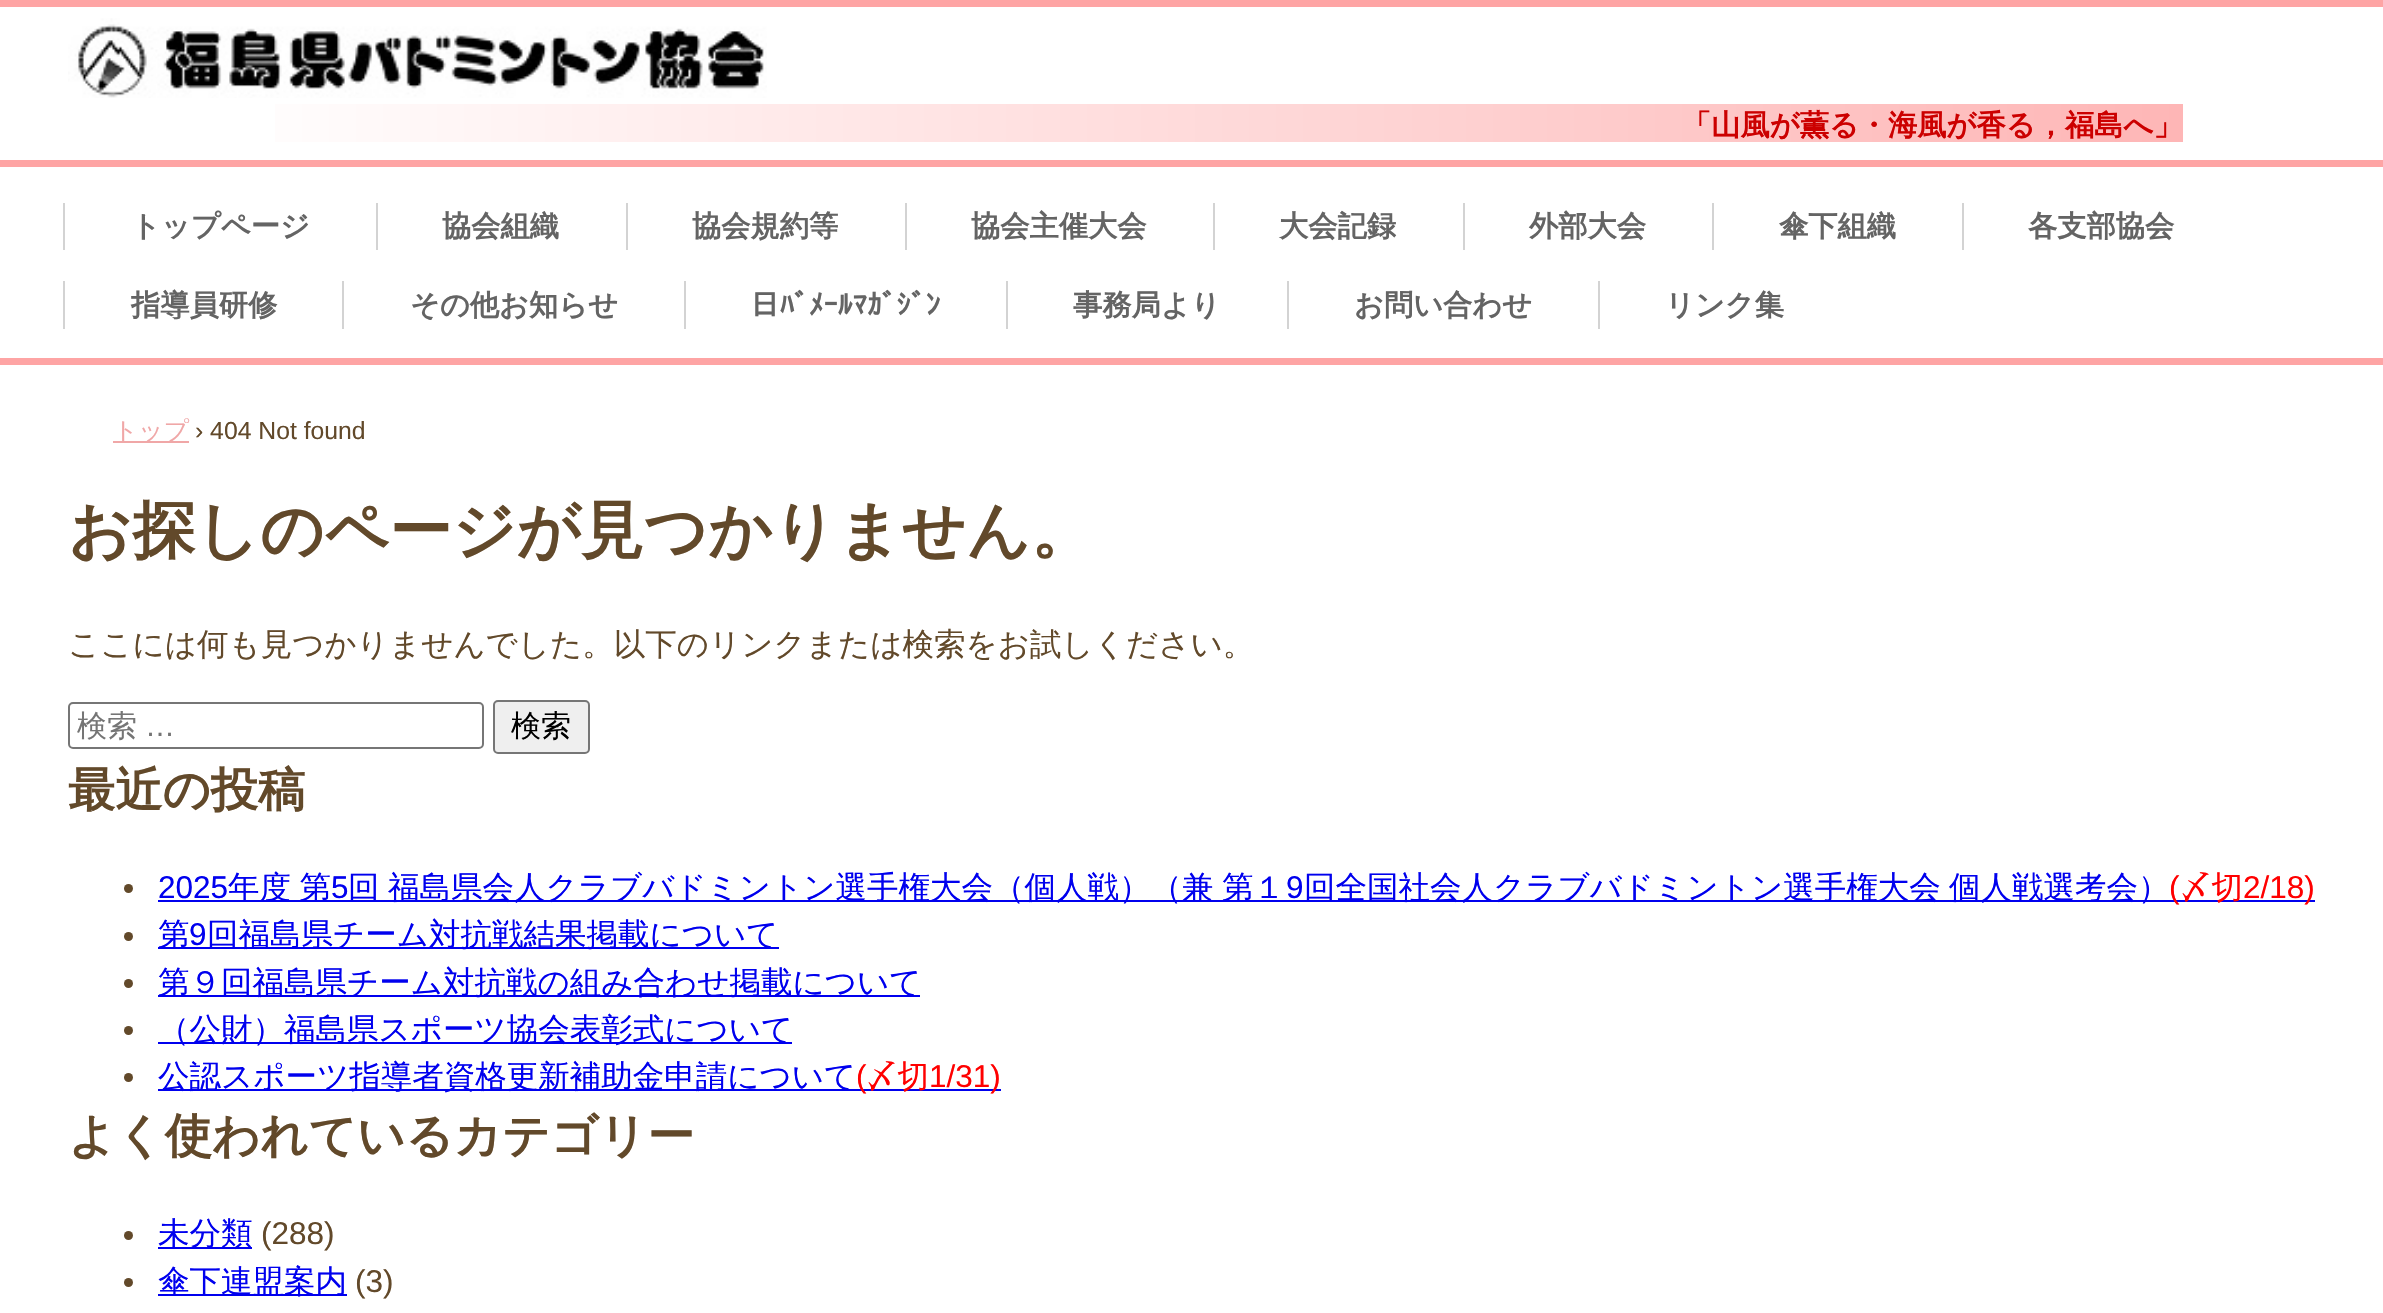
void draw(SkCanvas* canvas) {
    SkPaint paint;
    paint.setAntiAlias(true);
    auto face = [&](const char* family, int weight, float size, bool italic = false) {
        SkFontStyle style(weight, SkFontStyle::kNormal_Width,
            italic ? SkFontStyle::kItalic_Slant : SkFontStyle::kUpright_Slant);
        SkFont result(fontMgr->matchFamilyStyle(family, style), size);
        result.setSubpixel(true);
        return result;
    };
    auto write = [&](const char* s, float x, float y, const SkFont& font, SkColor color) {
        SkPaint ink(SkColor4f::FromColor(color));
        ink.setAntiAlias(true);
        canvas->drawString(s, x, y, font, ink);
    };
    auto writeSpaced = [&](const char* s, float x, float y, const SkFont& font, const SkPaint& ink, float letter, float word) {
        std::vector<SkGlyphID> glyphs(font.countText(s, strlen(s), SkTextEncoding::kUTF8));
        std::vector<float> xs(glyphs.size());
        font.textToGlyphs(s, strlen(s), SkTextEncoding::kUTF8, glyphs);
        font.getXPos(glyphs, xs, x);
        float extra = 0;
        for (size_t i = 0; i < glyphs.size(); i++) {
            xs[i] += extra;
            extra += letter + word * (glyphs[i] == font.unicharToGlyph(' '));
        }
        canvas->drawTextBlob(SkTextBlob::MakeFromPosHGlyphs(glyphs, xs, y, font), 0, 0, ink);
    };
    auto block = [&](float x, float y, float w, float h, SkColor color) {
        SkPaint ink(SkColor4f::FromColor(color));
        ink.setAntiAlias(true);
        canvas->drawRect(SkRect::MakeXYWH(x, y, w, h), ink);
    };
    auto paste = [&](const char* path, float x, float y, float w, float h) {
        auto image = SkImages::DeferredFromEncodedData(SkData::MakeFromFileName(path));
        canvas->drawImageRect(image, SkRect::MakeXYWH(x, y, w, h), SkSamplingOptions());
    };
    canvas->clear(SK_ColorWHITE);
    block(0, 0, 2383, 7, SkColorSetRGB(254, 164, 164));
    paste("pic1.png", 68, 18, 699, 80);
    {
        const SkColor colors[] = {SkColorSetRGB(254, 182, 182), SK_ColorWHITE};
        const float stops[] = {0, 1};
        const SkPoint ends[] = {{2183, 123}, {207, 123}};
        paint.setShader(SkGradientShader::MakeLinear(ends, colors, stops, 2, SkTileMode::kClamp));
        paint.setAlpha(255);
    }
    canvas->drawRect(SkRect::MakeXYWH(275, 104, 1908, 38), paint);
    auto kFont1 = face("WenQuanYi Zen Hei", 700, 29.25f);
    write("「山風が薫る・海風が香る，福島へ」", 1682, 135, kFont1, SkColorSetRGB(204, 0, 0));
    block(0, 160, 2383, 7, SkColorSetRGB(254, 164, 164));
    block(0, 358, 2383, 7, SkColorSetRGB(254, 164, 164));
    block(63, 203, 2, 47, SkColorSetRGB(211, 211, 211));
    write("トップページ", 131, 236, kFont1, SkColorSetRGB(100, 100, 100));
    block(376, 203, 2, 47, SkColorSetRGB(211, 211, 211));
    write("協会組織", 442, 236, kFont1, SkColorSetRGB(100, 100, 100));
    block(626, 203, 2, 47, SkColorSetRGB(211, 211, 211));
    write("協会規約等", 692, 236, kFont1, SkColorSetRGB(100, 100, 100));
    block(905, 203, 2, 47, SkColorSetRGB(211, 211, 211));
    write("協会主催大会", 971, 236, kFont1, SkColorSetRGB(100, 100, 100));
    block(1213, 203, 2, 47, SkColorSetRGB(211, 211, 211));
    write("大会記録", 1279, 236, kFont1, SkColorSetRGB(100, 100, 100));
    block(1463, 203, 2, 47, SkColorSetRGB(211, 211, 211));
    write("外部大会", 1529, 236, kFont1, SkColorSetRGB(100, 100, 100));
    block(1712, 203, 2, 47, SkColorSetRGB(211, 211, 211));
    write("傘下組織", 1779, 236, kFont1, SkColorSetRGB(100, 100, 100));
    block(1962, 203, 2, 47, SkColorSetRGB(211, 211, 211));
    write("各支部協会", 2028, 236, kFont1, SkColorSetRGB(100, 100, 100));
    block(63, 281, 2, 48, SkColorSetRGB(211, 211, 211));
    write("指導員研修", 131, 315, kFont1, SkColorSetRGB(100, 100, 100));
    block(342, 281, 2, 48, SkColorSetRGB(211, 211, 211));
    write("その他お知らせ", 410, 315, kFont1, SkColorSetRGB(100, 100, 100));
    block(684, 281, 2, 48, SkColorSetRGB(211, 211, 211));
    auto kFont2 = face("IPAPGothic", 700, 29.25f);
    write("日ﾊﾞﾒｰﾙﾏｶﾞｼﾞﾝ", 750, 315, kFont2, SkColorSetRGB(100, 100, 100));
    block(1006, 281, 2, 48, SkColorSetRGB(211, 211, 211));
    write("事務局より", 1073, 315, kFont1, SkColorSetRGB(100, 100, 100));
    block(1287, 281, 2, 48, SkColorSetRGB(211, 211, 211));
    write("お問い合わせ", 1354, 315, kFont1, SkColorSetRGB(100, 100, 100));
    block(1598, 281, 2, 48, SkColorSetRGB(211, 211, 211));
    write("リンク集", 1665, 315, kFont1, SkColorSetRGB(100, 100, 100));
    block(113, 441, 76, 2, SkColorSetRGB(240, 167, 167));
    auto kFont3 = face("WenQuanYi Zen Hei", 500, 24.75f);
    write("トップ", 113, 439, kFont3, SkColorSetRGB(240, 167, 167));
    auto kFont4 = face("Liberation Sans", 400, 24.75f);
    write("› 404 Not found", 195, 439, kFont4, SkColorSetRGB(98, 73, 42));
    auto kFont5 = face("WenQuanYi Zen Hei", 700, 63);
    write("お探しのページが見つかりません。", 68, 552, kFont5, SkColorSetRGB(98, 73, 42));
    auto kFont6 = face("WenQuanYi Zen Hei", 500, 31.5f);
    write("ここには何も見つかりませんでした。以下のリンクまたは検索をお試しください。", 68, 655, kFont6, SkColorSetRGB(98, 73, 42));
    paint.setStyle(SkPaint::kStroke_Style);
    paint.setStrokeWidth(2);
    paint.setShader(nullptr);
    paint.setColor(SkColorSetRGB(118, 118, 118));
    canvas->drawRoundRect(SkRect::MakeXYWH(69, 703, 414, 45), 4, 4, paint);
    auto kFont7 = face("WenQuanYi Zen Hei", 500, 30);
    write("検索", 77, 736, kFont7, SkColorSetRGB(117, 117, 117));
    auto kFont8 = face("Liberation Sans", 400, 30);
    write("…", 145, 736, kFont8, SkColorSetRGB(117, 117, 117));
    paint.setStyle(SkPaint::kFill_Style);
    paint.setColor(SkColorSetRGB(239, 239, 239));
    canvas->drawRoundRect(SkRect::MakeXYWH(494, 701, 95, 52), 4, 4, paint);
    paint.setStyle(SkPaint::kStroke_Style);
    paint.setColor(SkColorSetRGB(118, 118, 118));
    canvas->drawRoundRect(SkRect::MakeXYWH(494, 701, 95, 52), 4, 4, paint);
    write("検索", 511, 736, kFont7, SK_ColorBLACK);
    auto kFont9 = face("WenQuanYi Zen Hei", 700, 47.25f);
    write("最近の投稿", 68, 806, kFont9, SkColorSetRGB(98, 73, 42));
    paint.setStyle(SkPaint::kFill_Style);
    paint.setColor(SkColorSetRGB(98, 73, 42));
    canvas->drawCircle(128.5f, 888.5f, 4.5f, paint);
    auto kFont10 = face("Liberation Sans", 400, 31.5f);
    write("2025", 158, 898, kFont10, SkColorSetRGB(0, 0, 238));
    block(158, 900, 2157, 2, SkColorSetRGB(0, 0, 238));
    paint.setColor(SkColorSetRGB(0, 0, 238));
    writeSpaced("年度 第", 228, 898, kFont6, paint, 0, -1);
    write("5", 331, 898, kFont10, SkColorSetRGB(0, 0, 238));
    writeSpaced("回 福島県会人クラブバドミントン選手権大会（個人戦）（兼 第１", 348, 898, kFont6, paint, 0, -1);
    write("9", 1286, 898, kFont10, SkColorSetRGB(0, 0, 238));
    writeSpaced("回全国社会人クラブバドミントン選手権大会 個人戦選考会）", 1304, 898, kFont6, paint, 0, -1);
    write("(", 2169, 898, kFont10, SkColorSetRGB(255, 0, 0));
    write("〆切", 2180, 898, kFont6, SkColorSetRGB(255, 0, 0));
    write("2/18)", 2243, 898, kFont10, SkColorSetRGB(255, 0, 0));
    paint.setColor(SkColorSetRGB(98, 73, 42));
    canvas->drawCircle(128.5f, 936.5f, 4.5f, paint);
    block(158, 947, 621, 2, SkColorSetRGB(0, 0, 238));
    write("第", 158, 945, kFont6, SkColorSetRGB(0, 0, 238));
    write("9", 189, 945, kFont10, SkColorSetRGB(0, 0, 238));
    write("回福島県チーム対抗戦結果掲載について", 207, 945, kFont6, SkColorSetRGB(0, 0, 238));
    canvas->drawCircle(128.5f, 983.5f, 4.5f, paint);
    block(158, 995, 762, 2, SkColorSetRGB(0, 0, 238));
    write("第９回福島県チーム対抗戦の組み合わせ掲載について", 158, 993, kFont6, SkColorSetRGB(0, 0, 238));
    canvas->drawCircle(128.5f, 1030.5f, 4.5f, paint);
    block(158, 1042, 634, 2, SkColorSetRGB(0, 0, 238));
    write("（公財）福島県スポーツ協会表彰式について", 158, 1040, kFont6, SkColorSetRGB(0, 0, 238));
    canvas->drawCircle(128.5f, 1077.5f, 4.5f, paint);
    block(158, 1089, 843, 2, SkColorSetRGB(0, 0, 238));
    write("公認スポーツ指導者資格更新補助金申請について", 158, 1087, kFont6, SkColorSetRGB(0, 0, 238));
    write("(", 856, 1087, kFont10, SkColorSetRGB(255, 0, 0));
    write("〆切", 866, 1087, kFont6, SkColorSetRGB(255, 0, 0));
    write("1/31)", 929, 1087, kFont10, SkColorSetRGB(255, 0, 0));
    write("よく使われているカテゴリー", 68, 1152, kFont9, SkColorSetRGB(98, 73, 42));
    canvas->drawCircle(128.5f, 1235.5f, 4.5f, paint);
    block(158, 1247, 94, 2, SkColorSetRGB(0, 0, 238));
    write("未分類", 158, 1244, kFont6, SkColorSetRGB(0, 0, 238));
    write("(288)", 261, 1244, kFont10, SkColorSetRGB(98, 73, 42));
    canvas->drawCircle(128.5f, 1282.5f, 4.5f, paint);
    block(158, 1294, 189, 2, SkColorSetRGB(0, 0, 238));
    write("傘下連盟案内", 158, 1292, kFont6, SkColorSetRGB(0, 0, 238));
    write("(3)", 355, 1292, kFont10, SkColorSetRGB(98, 73, 42));
}
